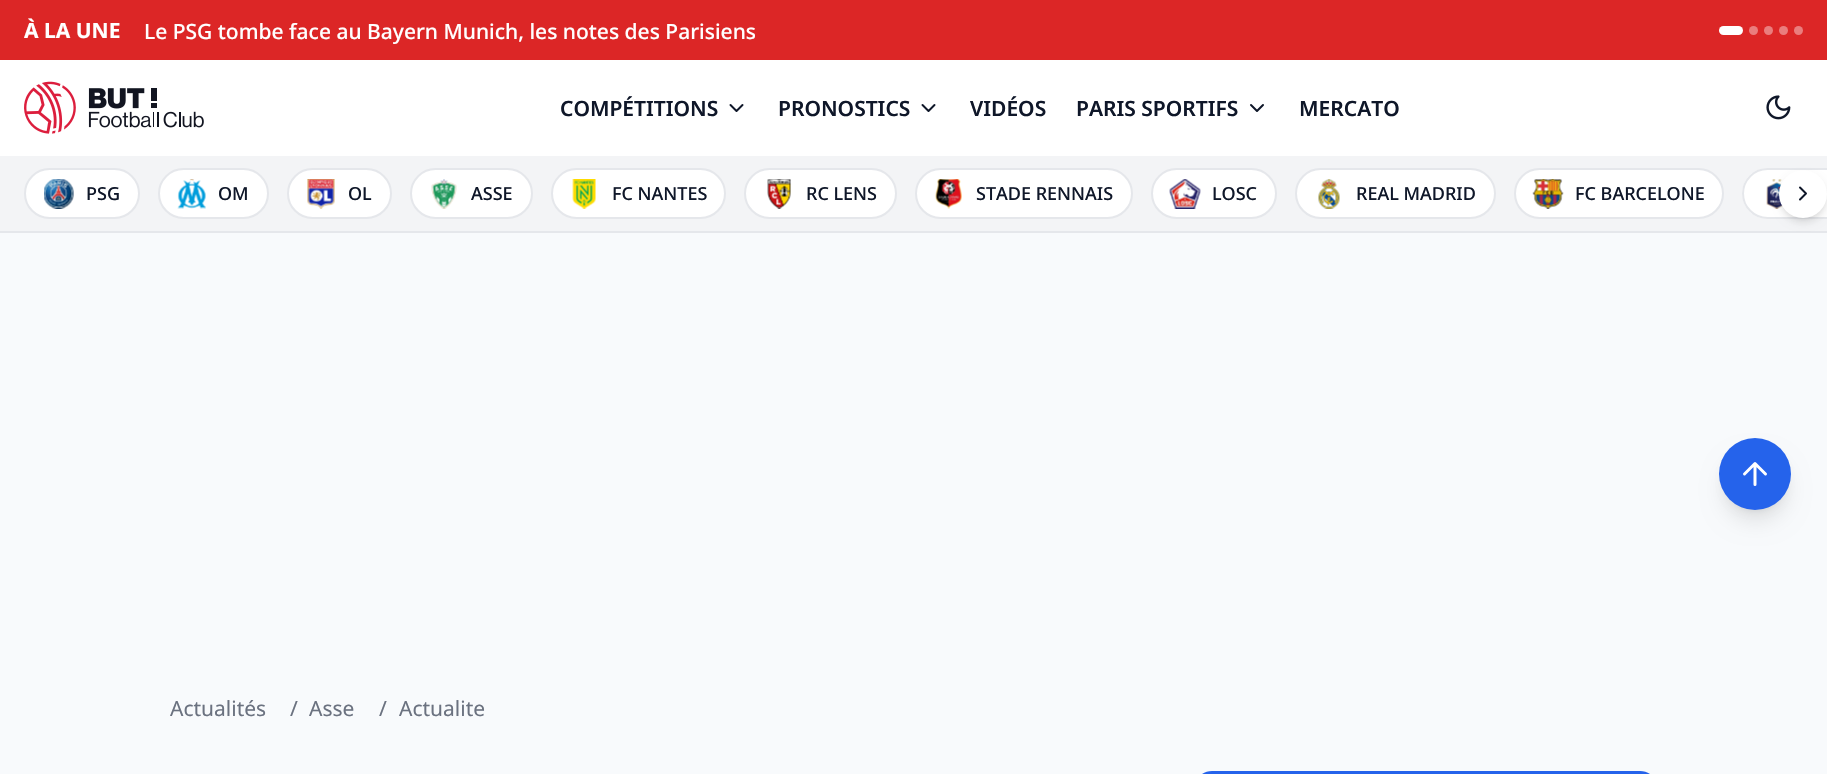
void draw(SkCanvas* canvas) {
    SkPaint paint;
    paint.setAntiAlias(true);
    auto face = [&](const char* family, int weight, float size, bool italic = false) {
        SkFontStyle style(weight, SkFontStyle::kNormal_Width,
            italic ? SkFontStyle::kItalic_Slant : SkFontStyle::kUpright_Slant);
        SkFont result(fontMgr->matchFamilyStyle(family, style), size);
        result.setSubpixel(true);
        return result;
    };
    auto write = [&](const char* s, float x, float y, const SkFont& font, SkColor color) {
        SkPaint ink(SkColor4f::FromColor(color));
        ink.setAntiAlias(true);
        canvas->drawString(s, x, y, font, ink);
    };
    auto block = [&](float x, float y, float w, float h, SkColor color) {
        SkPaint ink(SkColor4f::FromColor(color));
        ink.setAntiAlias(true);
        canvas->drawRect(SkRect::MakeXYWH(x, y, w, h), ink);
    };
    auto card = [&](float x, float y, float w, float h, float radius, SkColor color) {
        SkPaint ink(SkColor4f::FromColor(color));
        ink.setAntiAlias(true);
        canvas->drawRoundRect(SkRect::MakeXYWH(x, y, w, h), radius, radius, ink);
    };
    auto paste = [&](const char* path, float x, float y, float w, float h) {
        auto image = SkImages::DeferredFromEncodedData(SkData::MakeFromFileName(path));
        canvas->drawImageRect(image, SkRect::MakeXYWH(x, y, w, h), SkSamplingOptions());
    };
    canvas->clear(SkColorSetRGB(248, 250, 252));
    block(0, 0, 1827, 60, SkColorSetRGB(220, 38, 38));
    auto kFont1 = face("Noto Sans", 700, 21);
    write("À LA UNE", 24, 38, kFont1, SK_ColorWHITE);
    auto kFont2 = face("Noto Sans", 500, 21);
    write("Le PSG tombe face au Bayern Munich, les notes des Parisiens", 144, 39, kFont2, SK_ColorWHITE);
    card(1719, 26, 24, 9, 4.5f, SK_ColorWHITE);
    paint.setColor(SkColorSetRGB(234, 125, 125));
    canvas->drawCircle(1753.5f, 30.5f, 4.5f, paint);
    canvas->drawCircle(1768.5f, 30.5f, 4.5f, paint);
    canvas->drawCircle(1783.5f, 30.5f, 4.5f, paint);
    canvas->drawCircle(1798.5f, 30.5f, 4.5f, paint);
    block(0, 60, 1827, 96, SK_ColorWHITE);
    paste("pic1.png", 24, 81, 180, 53);
    auto kFont3 = face("Noto Sans", 600, 21);
    write("COMPÉTITIONS", 560, 116, kFont3, SkColorSetRGB(15, 23, 41));
    paint.setStyle(SkPaint::kStroke_Style);
    paint.setStrokeWidth(2);
    paint.setStrokeCap(SkPaint::kRound_Cap);
    paint.setStrokeJoin(SkPaint::kRound_Join);
    paint.setColor(SkColorSetRGB(15, 23, 41));
    canvas->drawPath(SkPathBuilder().moveTo(730.5f, 105).lineTo(736.5f, 111).lineTo(742.5f, 105).detach(), paint);
    write("PRONOSTICS", 778, 116, kFont3, SkColorSetRGB(15, 23, 41));
    canvas->drawPath(SkPathBuilder().moveTo(922.5f, 105).lineTo(928.5f, 111).lineTo(934.5f, 105).detach(), paint);
    write("VIDÉOS", 970, 116, kFont3, SkColorSetRGB(15, 23, 41));
    write("PARIS SPORTIFS", 1076, 116, kFont3, SkColorSetRGB(15, 23, 41));
    canvas->drawPath(SkPathBuilder().moveTo(1251, 105).lineTo(1257, 111).lineTo(1263, 105).detach(), paint);
    write("MERCATO", 1299, 116, kFont3, SkColorSetRGB(15, 23, 41));
    paste("pic2.png", 1766, 95, 25, 25);
    block(0, 156, 1827, 75, SkColorSetRGB(243, 244, 246));
    block(0, 231, 1827, 2, SkColorSetRGB(229, 231, 235));
    paint.setStyle(SkPaint::kFill_Style);
    paint.setColor(SK_ColorWHITE);
    canvas->drawRoundRect(SkRect::MakeXYWH(25, 169, 114, 49), 24.5f, 24.5f, paint);
    paint.setStyle(SkPaint::kStroke_Style);
    paint.setStrokeCap(SkPaint::kButt_Cap);
    paint.setStrokeJoin(SkPaint::kMiter_Join);
    paint.setColor(SkColorSetRGB(229, 231, 235));
    canvas->drawRoundRect(SkRect::MakeXYWH(25, 169, 114, 49), 24.5f, 24.5f, paint);
    paste("pic3.png", 44, 179, 30, 30);
    auto kFont4 = face("Noto Sans", 500, 18);
    write("PSG", 86, 200, kFont4, SkColorSetRGB(15, 23, 41));
    paint.setStyle(SkPaint::kFill_Style);
    paint.setColor(SK_ColorWHITE);
    canvas->drawRoundRect(SkRect::MakeXYWH(159, 169, 109, 49), 24.5f, 24.5f, paint);
    paint.setStyle(SkPaint::kStroke_Style);
    paint.setColor(SkColorSetRGB(229, 231, 235));
    canvas->drawRoundRect(SkRect::MakeXYWH(159, 169, 109, 49), 24.5f, 24.5f, paint);
    paste("pic4.png", 177, 179, 29, 30);
    write("OM", 218, 200, kFont4, SkColorSetRGB(15, 23, 41));
    paint.setStyle(SkPaint::kFill_Style);
    paint.setColor(SK_ColorWHITE);
    canvas->drawRoundRect(SkRect::MakeXYWH(288, 169, 103, 49), 24.5f, 24.5f, paint);
    paint.setStyle(SkPaint::kStroke_Style);
    paint.setColor(SkColorSetRGB(229, 231, 235));
    canvas->drawRoundRect(SkRect::MakeXYWH(288, 169, 103, 49), 24.5f, 24.5f, paint);
    paste("pic5.png", 307, 179, 28, 30);
    write("OL", 348, 200, kFont4, SkColorSetRGB(15, 23, 41));
    paint.setStyle(SkPaint::kFill_Style);
    paint.setColor(SK_ColorWHITE);
    canvas->drawRoundRect(SkRect::MakeXYWH(411, 169, 121, 49), 24.5f, 24.5f, paint);
    paint.setStyle(SkPaint::kStroke_Style);
    paint.setColor(SkColorSetRGB(229, 231, 235));
    canvas->drawRoundRect(SkRect::MakeXYWH(411, 169, 121, 49), 24.5f, 24.5f, paint);
    paste("pic6.png", 431, 179, 26, 30);
    write("ASSE", 471, 200, kFont4, SkColorSetRGB(15, 23, 41));
    paint.setStyle(SkPaint::kFill_Style);
    paint.setColor(SK_ColorWHITE);
    canvas->drawRoundRect(SkRect::MakeXYWH(552, 169, 173, 49), 24.5f, 24.5f, paint);
    paint.setStyle(SkPaint::kStroke_Style);
    paint.setColor(SkColorSetRGB(229, 231, 235));
    canvas->drawRoundRect(SkRect::MakeXYWH(552, 169, 173, 49), 24.5f, 24.5f, paint);
    paste("pic7.png", 572, 179, 24, 30);
    write("FC NANTES", 612, 200, kFont4, SkColorSetRGB(15, 23, 41));
    paint.setStyle(SkPaint::kFill_Style);
    paint.setColor(SK_ColorWHITE);
    canvas->drawRoundRect(SkRect::MakeXYWH(745, 169, 151, 49), 24.5f, 24.5f, paint);
    paint.setStyle(SkPaint::kStroke_Style);
    paint.setColor(SkColorSetRGB(229, 231, 235));
    canvas->drawRoundRect(SkRect::MakeXYWH(745, 169, 151, 49), 24.5f, 24.5f, paint);
    paste("pic8.png", 767, 179, 24, 30);
    write("RC LENS", 806, 200, kFont4, SkColorSetRGB(15, 23, 41));
    paint.setStyle(SkPaint::kFill_Style);
    paint.setColor(SK_ColorWHITE);
    canvas->drawRoundRect(SkRect::MakeXYWH(916, 169, 216, 49), 24.5f, 24.5f, paint);
    paint.setStyle(SkPaint::kStroke_Style);
    paint.setColor(SkColorSetRGB(229, 231, 235));
    canvas->drawRoundRect(SkRect::MakeXYWH(916, 169, 216, 49), 24.5f, 24.5f, paint);
    paste("pic9.png", 935, 179, 27, 30);
    write("STADE RENNAIS", 976, 200, kFont4, SkColorSetRGB(15, 23, 41));
    paint.setStyle(SkPaint::kFill_Style);
    paint.setColor(SK_ColorWHITE);
    canvas->drawRoundRect(SkRect::MakeXYWH(1152, 169, 124, 49), 24.5f, 24.5f, paint);
    paint.setStyle(SkPaint::kStroke_Style);
    paint.setColor(SkColorSetRGB(229, 231, 235));
    canvas->drawRoundRect(SkRect::MakeXYWH(1152, 169, 124, 49), 24.5f, 24.5f, paint);
    paste("pic10.png", 1169, 179, 32, 30);
    write("LOSC", 1212, 200, kFont4, SkColorSetRGB(15, 23, 41));
    paint.setStyle(SkPaint::kFill_Style);
    paint.setColor(SK_ColorWHITE);
    canvas->drawRoundRect(SkRect::MakeXYWH(1296, 169, 199, 49), 24.5f, 24.5f, paint);
    paint.setStyle(SkPaint::kStroke_Style);
    paint.setColor(SkColorSetRGB(229, 231, 235));
    canvas->drawRoundRect(SkRect::MakeXYWH(1296, 169, 199, 49), 24.5f, 24.5f, paint);
    paste("pic11.png", 1318, 179, 22, 30);
    write("REAL MADRID", 1356, 200, kFont4, SkColorSetRGB(15, 23, 41));
    paint.setStyle(SkPaint::kFill_Style);
    paint.setColor(SK_ColorWHITE);
    canvas->drawRoundRect(SkRect::MakeXYWH(1515, 169, 208, 49), 24.5f, 24.5f, paint);
    paint.setStyle(SkPaint::kStroke_Style);
    paint.setColor(SkColorSetRGB(229, 231, 235));
    canvas->drawRoundRect(SkRect::MakeXYWH(1515, 169, 208, 49), 24.5f, 24.5f, paint);
    paste("pic12.png", 1532, 179, 32, 30);
    write("FC BARCELONE", 1575, 200, kFont4, SkColorSetRGB(15, 23, 41));
    paint.setStyle(SkPaint::kFill_Style);
    paint.setColor(SK_ColorWHITE);
    canvas->drawPath(SkPathBuilder().moveTo(1767.5f, 168).lineTo(1827, 168).lineTo(1827, 219).lineTo(1767.5f, 219).cubicTo(1753.5f, 219, 1742, 207.5f, 1742, 193.5f).cubicTo(1742, 179.5f, 1753.5f, 168, 1767.5f, 168).close().detach(), paint);
    paint.setStyle(SkPaint::kStroke_Style);
    paint.setColor(SkColorSetRGB(229, 231, 235));
    canvas->drawRoundRect(SkRect::MakeXYWH(1743, 169, 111, 49), 24.5f, 24.5f, paint);
    paste("pic13.png", 1766, 179, 17, 30);
    paint.setStyle(SkPaint::kFill_Style);
    paint.setColor(SkColorSetARGB(26, 0, 0, 0));
    paint.setMaskFilter(SkMaskFilter::MakeBlur(kNormal_SkBlurStyle, 3));
    canvas->drawRoundRect(SkRect::MakeXYWH(1782, 176, 42, 42), 21, 21, paint);
    paint.setMaskFilter(nullptr);
    paint.setMaskFilter(SkMaskFilter::MakeBlur(kNormal_SkBlurStyle, 4.5f));
    canvas->drawRoundRect(SkRect::MakeXYWH(1781, 177, 45, 45), 22.5f, 22.5f, paint);
    paint.setMaskFilter(nullptr);
    paint.setColor(SK_ColorWHITE);
    canvas->drawCircle(1803, 194, 24, paint);
    paint.setStyle(SkPaint::kStroke_Style);
    paint.setStrokeCap(SkPaint::kRound_Cap);
    paint.setStrokeJoin(SkPaint::kRound_Join);
    paint.setColor(SkColorSetRGB(15, 23, 41));
    canvas->drawPath(SkPathBuilder().moveTo(1800, 199.5f).lineTo(1806, 193.5f).lineTo(1800, 187.5f).detach(), paint);
    paint.setStyle(SkPaint::kFill_Style);
    paint.setColor(SkColorSetARGB(26, 0, 0, 0));
    paint.setMaskFilter(SkMaskFilter::MakeBlur(kNormal_SkBlurStyle, 4.5f));
    canvas->drawRoundRect(SkRect::MakeXYWH(1725, 450, 60, 60), 30, 30, paint);
    paint.setMaskFilter(nullptr);
    paint.setMaskFilter(SkMaskFilter::MakeBlur(kNormal_SkBlurStyle, 11));
    canvas->drawRoundRect(SkRect::MakeXYWH(1724, 458, 63, 63), 31.5f, 31.5f, paint);
    paint.setMaskFilter(nullptr);
    paint.setColor(SkColorSetRGB(37, 99, 235));
    canvas->drawCircle(1755, 474, 36, paint);
    paint.setStyle(SkPaint::kStroke_Style);
    paint.setStrokeWidth(3);
    paint.setColor(SK_ColorWHITE);
    canvas->drawPath(SkPathBuilder().moveTo(1744.5f, 474).lineTo(1755, 463.5f).lineTo(1765.5f, 474).moveTo(1755, 484.5f).lineTo(1755, 463.5f).detach(), paint);
    auto kFont5 = face("Noto Sans", 400, 21);
    write("Actualités", 170, 716, kFont5, SkColorSetRGB(107, 114, 128));
    write("/", 290, 716, kFont5, SkColorSetRGB(107, 114, 128));
    write("Asse", 309, 716, kFont5, SkColorSetRGB(107, 114, 128));
    write("/", 379, 716, kFont5, SkColorSetRGB(107, 114, 128));
    write("Actualite", 399, 716, kFont5, SkColorSetRGB(107, 114, 128));
    paint.setStyle(SkPaint::kFill_Style);
    paint.setColor(SkColorSetRGB(37, 99, 235));
    canvas->drawPath(SkPathBuilder().moveTo(1212, 771).lineTo(1640, 771).cubicTo(1650, 771, 1658, 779, 1658, 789).lineTo(1658, 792).lineTo(1194, 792).lineTo(1194, 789).cubicTo(1194, 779, 1202, 771, 1212, 771).close().detach(), paint);
}
